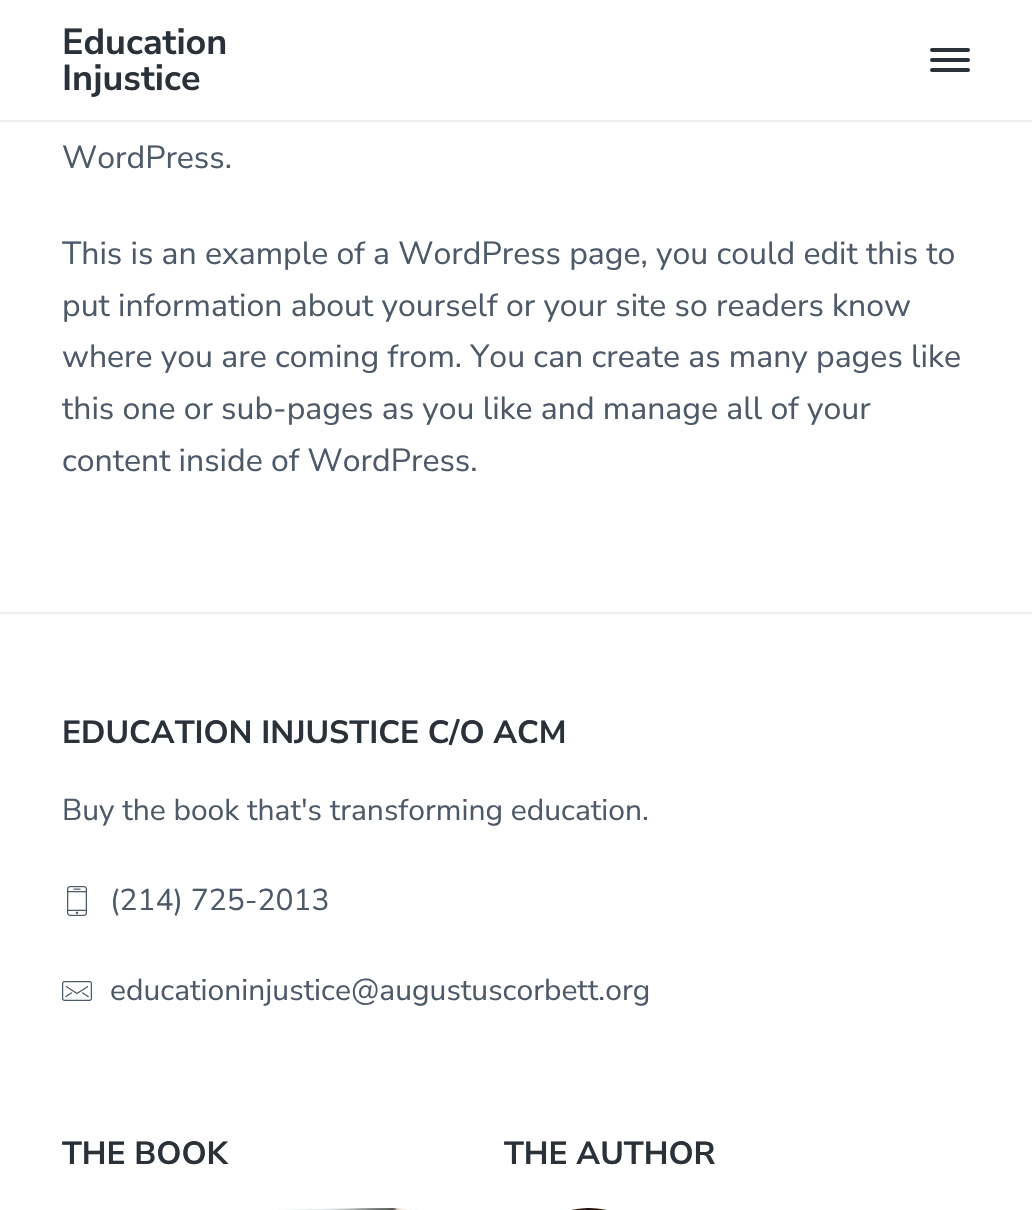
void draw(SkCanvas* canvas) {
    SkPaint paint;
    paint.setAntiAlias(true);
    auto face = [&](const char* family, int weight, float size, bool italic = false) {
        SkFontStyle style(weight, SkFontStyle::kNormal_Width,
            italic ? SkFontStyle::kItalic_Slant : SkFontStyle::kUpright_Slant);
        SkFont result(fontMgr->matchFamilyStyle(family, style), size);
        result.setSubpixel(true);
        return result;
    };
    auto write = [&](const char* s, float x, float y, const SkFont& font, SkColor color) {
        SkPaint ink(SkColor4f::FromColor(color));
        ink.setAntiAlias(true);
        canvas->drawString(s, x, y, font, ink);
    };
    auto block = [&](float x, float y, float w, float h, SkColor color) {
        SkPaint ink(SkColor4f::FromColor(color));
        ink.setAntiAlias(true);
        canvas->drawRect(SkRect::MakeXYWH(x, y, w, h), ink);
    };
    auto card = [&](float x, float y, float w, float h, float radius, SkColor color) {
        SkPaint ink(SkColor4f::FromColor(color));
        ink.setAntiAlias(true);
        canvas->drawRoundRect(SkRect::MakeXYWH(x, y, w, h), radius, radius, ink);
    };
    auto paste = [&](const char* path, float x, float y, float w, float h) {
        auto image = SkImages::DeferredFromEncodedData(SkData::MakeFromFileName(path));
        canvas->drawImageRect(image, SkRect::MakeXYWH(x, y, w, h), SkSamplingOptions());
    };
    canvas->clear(SK_ColorWHITE);
    block(0, 120, 1032, 2, SkColorSetRGB(238, 239, 240));
    auto kFont1 = face("Nunito Sans", 700, 36);
    write("Education", 62, 54, kFont1, SkColorSetRGB(42, 49, 57));
    write("Injustice", 62, 90, kFont1, SkColorSetRGB(42, 49, 57));
    card(930, 58, 40, 4, 2, SkColorSetRGB(42, 49, 57));
    card(930, 48, 40, 4, 2, SkColorSetRGB(42, 49, 57));
    card(930, 68, 40, 4, 2, SkColorSetRGB(42, 49, 57));
    auto kFont2 = face("Nunito Sans", 400, 32);
    write("WordPress.", 62, 168, kFont2, SkColorSetRGB(77, 89, 104));
    write("This is an example of a WordPress page, you could edit this to", 62, 264, kFont2, SkColorSetRGB(77, 89, 104));
    write("put information about yourself or your site so readers know", 62, 316, kFont2, SkColorSetRGB(77, 89, 104));
    write("where you are coming from. You can create as many pages like", 62, 367, kFont2, SkColorSetRGB(77, 89, 104));
    write("this one or sub-pages as you like and manage all of your", 62, 419, kFont2, SkColorSetRGB(77, 89, 104));
    write("content inside of WordPress.", 62, 471, kFont2, SkColorSetRGB(77, 89, 104));
    block(0, 612, 1032, 2, SkColorSetRGB(236, 238, 241));
    auto kFont3 = face("Nunito Sans", 700, 32);
    write("EDUCATION INJUSTICE C/O ACM", 62, 743, kFont3, SkColorSetRGB(42, 49, 57));
    auto kFont4 = face("Nunito Sans", 400, 30);
    write("Buy the book that's transforming education.", 62, 820, kFont4, SkColorSetRGB(77, 89, 104));
    paste("pic1.png", 67, 886, 20, 30);
    write("(214) 725-2013", 110, 910, kFont4, SkColorSetRGB(77, 89, 104));
    paste("pic2.png", 62, 981, 30, 20);
    write("educationinjustice@augustuscorbett.org", 110, 1000, kFont4, SkColorSetRGB(77, 89, 104));
    write("THE BOOK", 62, 1164, kFont3, SkColorSetRGB(42, 49, 57));
    paste("pic3.png", 278, 1208, 140, 2);
    write("THE AUTHOR", 504, 1164, kFont3, SkColorSetRGB(42, 49, 57));
    paste("pic4.png", 571, 1208, 36, 2);
}
